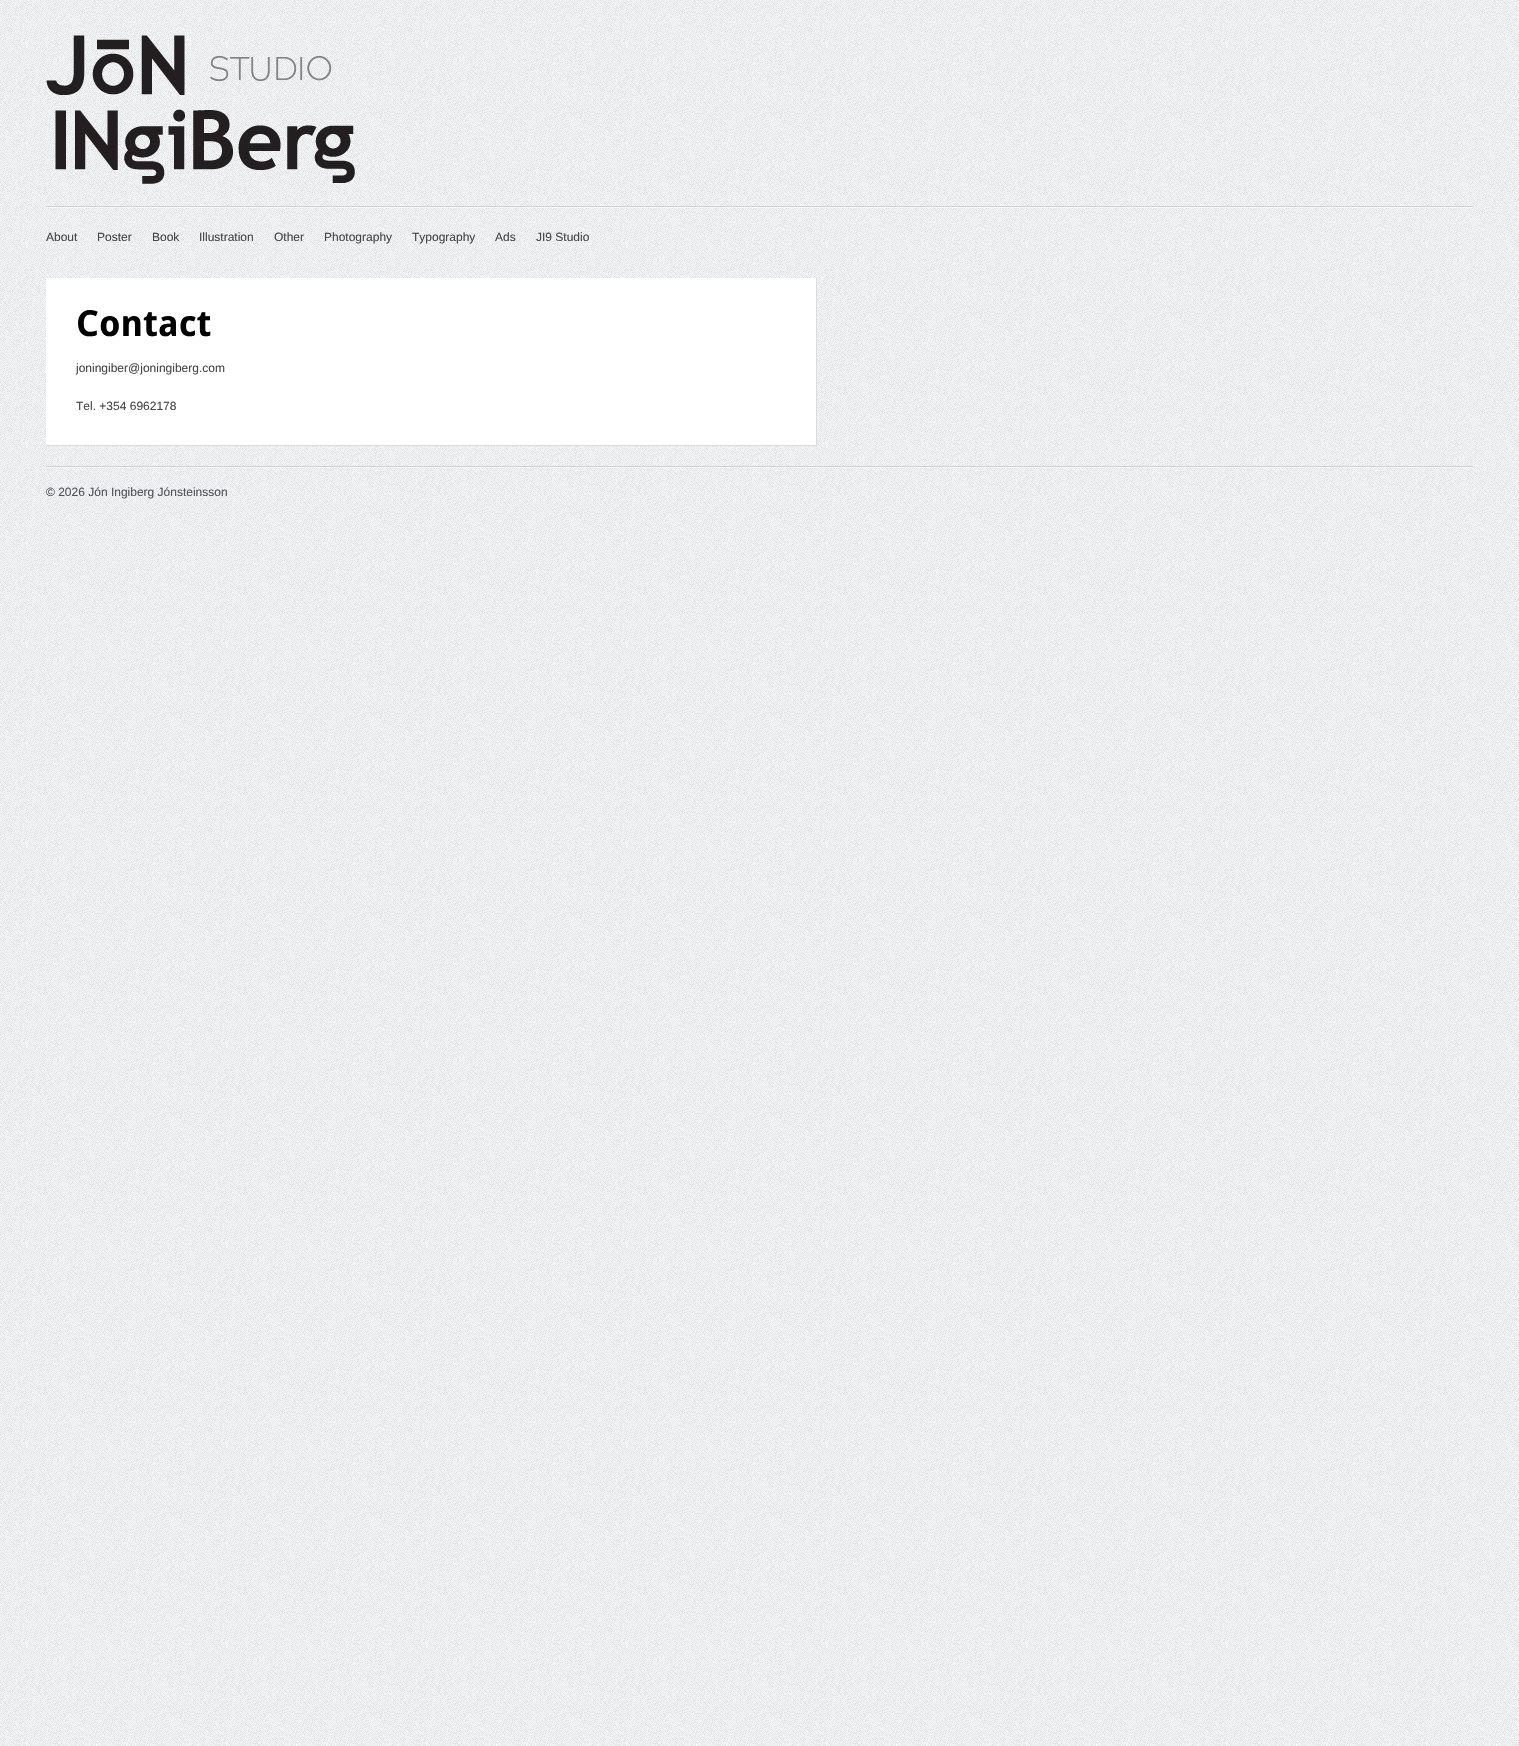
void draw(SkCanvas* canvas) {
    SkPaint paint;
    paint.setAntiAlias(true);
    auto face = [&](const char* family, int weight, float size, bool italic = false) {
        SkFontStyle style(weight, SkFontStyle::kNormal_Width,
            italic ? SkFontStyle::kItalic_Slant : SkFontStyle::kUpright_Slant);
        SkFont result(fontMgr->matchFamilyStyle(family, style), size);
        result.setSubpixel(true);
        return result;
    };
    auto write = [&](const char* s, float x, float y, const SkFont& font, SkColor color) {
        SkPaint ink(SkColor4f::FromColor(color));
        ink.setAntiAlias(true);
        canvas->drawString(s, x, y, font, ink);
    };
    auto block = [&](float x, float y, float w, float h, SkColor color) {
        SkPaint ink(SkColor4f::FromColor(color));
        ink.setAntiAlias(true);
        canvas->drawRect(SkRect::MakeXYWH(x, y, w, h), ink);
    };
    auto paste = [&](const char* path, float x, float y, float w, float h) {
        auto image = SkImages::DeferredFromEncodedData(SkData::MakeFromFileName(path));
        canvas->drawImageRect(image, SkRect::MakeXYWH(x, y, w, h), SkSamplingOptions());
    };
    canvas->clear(SK_ColorWHITE);
    paste("pic1.png", 0, 0, 1519, 1746);
    paste("pic2.png", 46, 35, 309, 149);
    paste("pic3.png", 46, 206, 1427, 2);
    auto kFont1 = face("Liberation Sans", 400, 12);
    write("About", 46, 241, kFont1, SkColorSetRGB(68, 68, 68));
    write("Poster", 97, 241, kFont1, SkColorSetRGB(68, 68, 68));
    write("Book", 152, 241, kFont1, SkColorSetRGB(68, 68, 68));
    write("Illustration", 199, 241, kFont1, SkColorSetRGB(68, 68, 68));
    write("Other", 274, 241, kFont1, SkColorSetRGB(68, 68, 68));
    write("Photography", 324, 241, kFont1, SkColorSetRGB(68, 68, 68));
    write("Typography", 412, 241, kFont1, SkColorSetRGB(68, 68, 68));
    write("Ads", 495, 241, kFont1, SkColorSetRGB(68, 68, 68));
    write("JI9 Studio", 536, 241, kFont1, SkColorSetRGB(68, 68, 68));
    block(46, 278, 770, 167, SK_ColorWHITE);
    block(816, 278, 1, 168, SkColorSetRGB(219, 219, 219));
    block(46, 445, 771, 1, SkColorSetRGB(219, 219, 219));
    auto kFont2 = face("Droid Sans", 700, 36);
    write("Contact", 76, 336, kFont2, SK_ColorBLACK);
    write("joningiber@joningiberg.com", 76, 372, kFont1, SkColorSetRGB(68, 68, 68));
    write("Tel. +354 6962178", 76, 410, kFont1, SkColorSetRGB(68, 68, 68));
    paste("pic4.png", 46, 466, 1427, 2);
    write("© 2026 Jón Ingiberg Jónsteinsson", 46, 496, kFont1, SkColorSetRGB(79, 83, 86));
}
